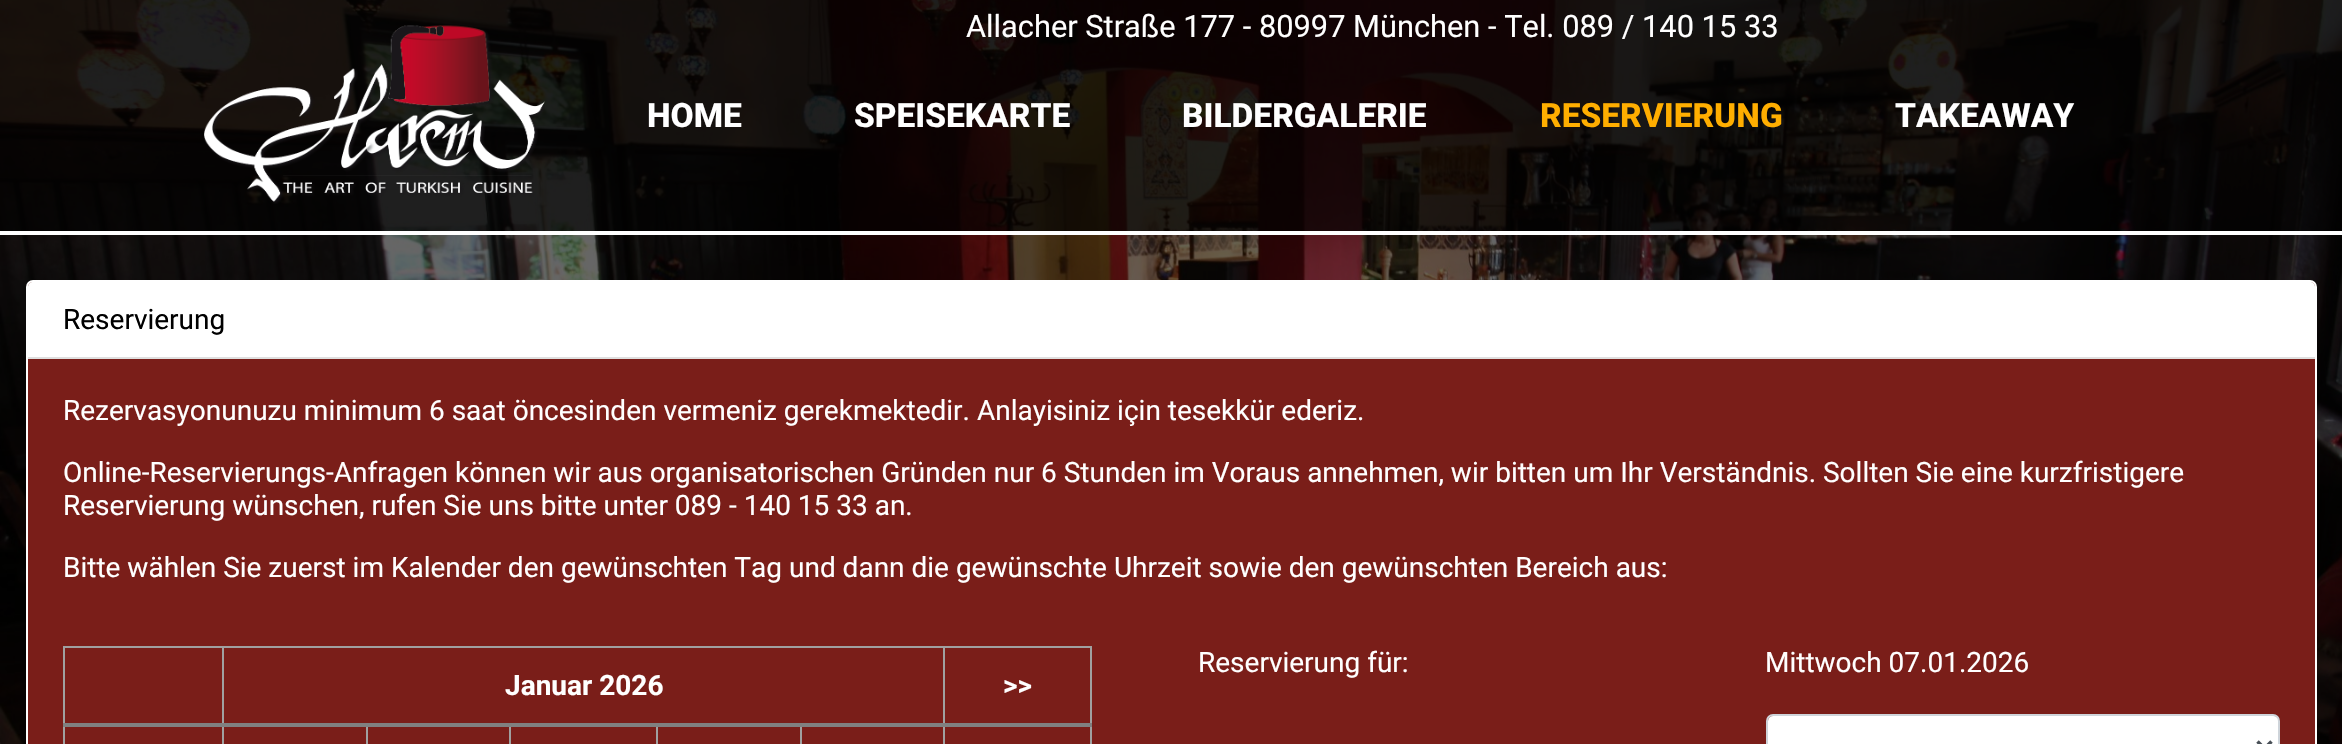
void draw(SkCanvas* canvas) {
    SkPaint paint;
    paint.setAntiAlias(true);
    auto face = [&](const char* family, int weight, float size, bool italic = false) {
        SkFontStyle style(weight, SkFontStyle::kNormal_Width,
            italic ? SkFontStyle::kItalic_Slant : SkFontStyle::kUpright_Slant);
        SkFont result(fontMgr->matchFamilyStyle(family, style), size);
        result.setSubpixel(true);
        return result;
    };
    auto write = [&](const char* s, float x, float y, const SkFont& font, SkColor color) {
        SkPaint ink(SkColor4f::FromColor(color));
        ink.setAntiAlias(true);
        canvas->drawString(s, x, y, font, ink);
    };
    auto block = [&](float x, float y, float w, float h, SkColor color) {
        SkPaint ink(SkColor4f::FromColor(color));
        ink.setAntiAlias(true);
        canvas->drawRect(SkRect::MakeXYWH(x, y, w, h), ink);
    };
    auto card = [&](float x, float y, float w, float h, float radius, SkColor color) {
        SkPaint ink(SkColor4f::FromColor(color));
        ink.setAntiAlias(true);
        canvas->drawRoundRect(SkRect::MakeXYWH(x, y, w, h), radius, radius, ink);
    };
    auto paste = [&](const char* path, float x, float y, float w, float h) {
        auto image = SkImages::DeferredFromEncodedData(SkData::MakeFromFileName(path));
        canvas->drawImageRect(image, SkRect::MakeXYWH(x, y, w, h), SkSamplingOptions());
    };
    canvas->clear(SK_ColorWHITE);
    paste("pic2.png", 0, 0, 2342, 744);
    block(0, 0, 2342, 231, SkColorSetARGB(179, 0, 0, 0));
    block(0, 231, 2342, 4, SK_ColorWHITE);
    paste("pic1.png", 204, 25, 341, 179);
    auto kFont1 = face("Roboto", 400, 30.8f);
    write("Allacher Straße 177 - 80997 München - Tel. 089 / 140 15 33", 966, 37, kFont1, SK_ColorWHITE);
    auto kFont2 = face("Roboto", 800, 33.5f);
    write("HOME", 647, 127, kFont2, SK_ColorWHITE);
    write("SPEISEKARTE", 854, 127, kFont2, SK_ColorWHITE);
    write("BILDERGALERIE", 1182, 127, kFont2, SK_ColorWHITE);
    write("RESERVIERUNG", 1540, 127, kFont2, SkColorSetRGB(255, 174, 0));
    write("TAKEAWAY", 1895, 127, kFont2, SK_ColorWHITE);
    paint.setColor(SkColorSetRGB(122, 30, 25));
    canvas->drawRoundRect(SkRect::MakeXYWH(27, 281, 2289, 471), 6, 6, paint);
    paint.setStyle(SkPaint::kStroke_Style);
    paint.setStrokeWidth(2);
    paint.setColor(SK_ColorWHITE);
    canvas->drawRoundRect(SkRect::MakeXYWH(27, 281, 2289, 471), 6, 6, paint);
    paint.setStyle(SkPaint::kFill_Style);
    canvas->drawPath(SkPathBuilder().moveTo(33, 282).lineTo(2310, 282).cubicTo(2313, 282, 2315, 284, 2315, 287).lineTo(2315, 359).lineTo(28, 359).lineTo(28, 287).cubicTo(28, 284, 30, 282, 33, 282).close().detach(), paint);
    block(28, 357, 2287, 2, SkColorSetRGB(223, 223, 223));
    auto kFont3 = face("Roboto", 400, 28);
    write("Reservierung", 63, 329, kFont3, SK_ColorBLACK);
    write("Rezervasyonunuzu minimum 6 saat öncesinden vermeniz gerekmektedir. Anlayisiniz için tesekkür ederiz.", 63, 420, kFont3, SK_ColorWHITE);
    write("Online-Reservierungs-Anfragen können wir aus organisatorischen Gründen nur 6 Stunden im Voraus annehmen, wir bitten um Ihr Verständnis. Sollten Sie eine kurzfristigere", 63, 482, kFont3, SK_ColorWHITE);
    write("Reservierung wünschen, rufen Sie uns bitte unter 089 - 140 15 33 an.", 63, 515, kFont3, SK_ColorWHITE);
    write("Bitte wählen Sie zuerst im Kalender den gewünschten Tag und dann die gewünschte Uhrzeit sowie den gewünschten Bereich aus:", 63, 577, kFont3, SK_ColorWHITE);
    write("Reservierung für:", 1198, 672, kFont3, SK_ColorWHITE);
    write("Mittwoch 07.01.2026", 1765, 672, kFont3, SK_ColorWHITE);
    card(1768, 716, 511, 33, 5, SK_ColorWHITE);
    paint.setStyle(SkPaint::kStroke_Style);
    paint.setColor(SkColorSetRGB(206, 212, 218));
    canvas->drawRoundRect(SkRect::MakeXYWH(1767, 715, 512, 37), 6, 6, paint);
    paint.setStrokeWidth(3.5f);
    paint.setColor(SkColorSetRGB(73, 80, 87));
    canvas->drawPath(SkPathBuilder().moveTo(2257.5f, 741.5f).lineTo(2264.5f, 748.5f).lineTo(2271.5f, 741.5f).detach(), paint);
    block(63, 646, 1029, 2, SkColorSetRGB(160, 160, 160));
    block(1090, 646, 2, 98, SkColorSetRGB(160, 160, 160));
    block(63, 646, 2, 98, SkColorSetRGB(160, 160, 160));
    block(222, 646, 2, 98, SkColorSetRGB(160, 160, 160));
    block(366, 725, 2, 19, SkColorSetRGB(160, 160, 160));
    block(509, 725, 2, 19, SkColorSetRGB(160, 160, 160));
    block(656, 725, 2, 19, SkColorSetRGB(160, 160, 160));
    block(800, 725, 2, 19, SkColorSetRGB(160, 160, 160));
    block(943, 646, 2, 98, SkColorSetRGB(160, 160, 160));
    auto kFont4 = face("Roboto", 700, 28);
    write("Januar 2026", 505, 695, kFont4, SK_ColorWHITE);
    block(63, 723, 1029, 4, SkColorSetRGB(128, 128, 128));
    write(">>", 1003, 695, kFont4, SK_ColorWHITE);
}
